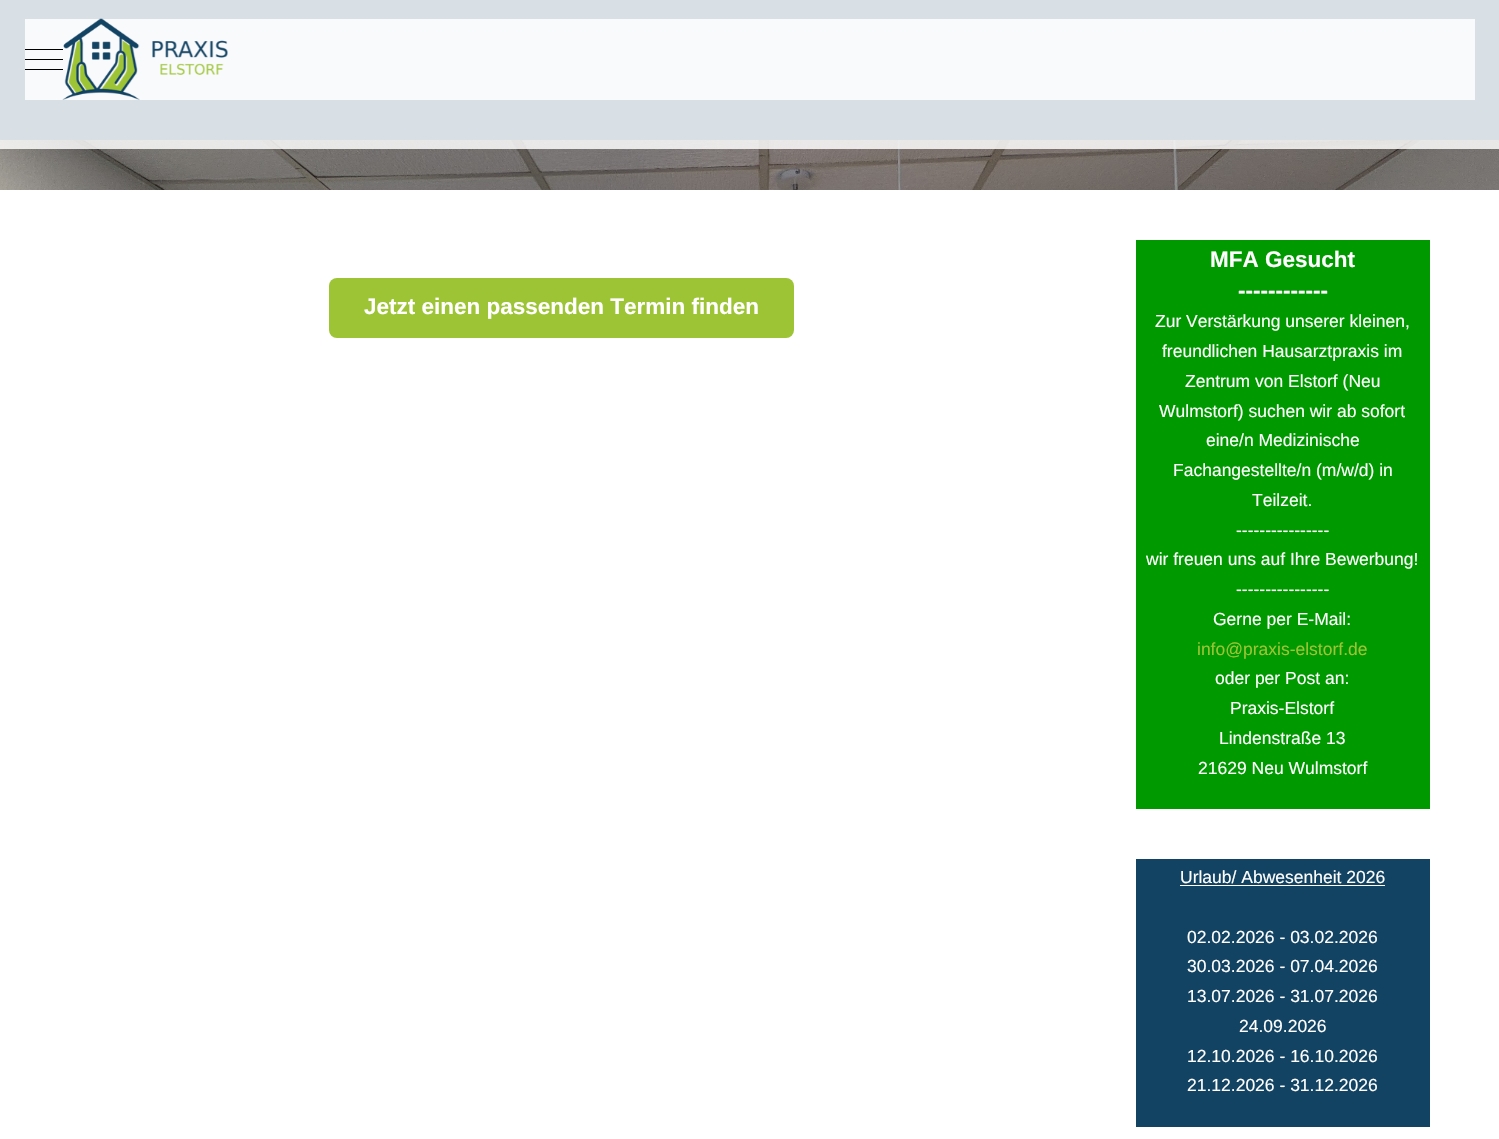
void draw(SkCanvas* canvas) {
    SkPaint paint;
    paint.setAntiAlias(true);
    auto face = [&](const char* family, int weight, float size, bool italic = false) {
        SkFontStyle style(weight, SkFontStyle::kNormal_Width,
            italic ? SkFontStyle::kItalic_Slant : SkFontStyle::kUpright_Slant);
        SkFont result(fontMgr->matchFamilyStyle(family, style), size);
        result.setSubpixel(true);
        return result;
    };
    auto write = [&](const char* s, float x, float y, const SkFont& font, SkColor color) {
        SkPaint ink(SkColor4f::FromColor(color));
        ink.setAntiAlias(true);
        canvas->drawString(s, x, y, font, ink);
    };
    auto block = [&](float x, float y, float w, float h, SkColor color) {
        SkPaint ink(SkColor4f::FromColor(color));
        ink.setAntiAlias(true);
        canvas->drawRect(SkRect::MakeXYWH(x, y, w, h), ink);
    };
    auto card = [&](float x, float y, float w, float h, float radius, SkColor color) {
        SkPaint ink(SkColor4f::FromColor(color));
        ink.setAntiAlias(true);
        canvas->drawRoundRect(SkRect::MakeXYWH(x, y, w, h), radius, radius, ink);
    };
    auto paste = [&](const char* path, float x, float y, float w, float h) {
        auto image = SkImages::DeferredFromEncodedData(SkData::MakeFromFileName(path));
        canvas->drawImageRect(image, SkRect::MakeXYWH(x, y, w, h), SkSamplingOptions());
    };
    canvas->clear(SK_ColorWHITE);
    paste("pic1.png", 0, 140, 1499, 50);
    block(0, 0, 1499, 140, SkColorSetRGB(19, 67, 99));
    block(0, 0, 1499, 149, SkColorSetARGB(212, 255, 255, 255));
    block(25, 19, 1450, 81, SkColorSetARGB(212, 255, 255, 255));
    paste("pic2.png", 62, 18, 166, 82);
    block(25, 59, 38, 1, SK_ColorBLACK);
    block(25, 49, 38, 1, SK_ColorBLACK);
    block(25, 69, 38, 1, SK_ColorBLACK);
    card(329, 278, 465, 60, 8, SkColorSetRGB(157, 196, 53));
    auto kFont1 = face("Liberation Sans", 700, 22.5f);
    write("Jetzt einen passenden Termin finden", 364, 314, kFont1, SK_ColorWHITE);
    block(1136, 240, 294, 569, SkColorSetRGB(0, 153, 0));
    write("MFA Gesucht", 1210, 267, kFont1, SK_ColorWHITE);
    write("------------", 1238, 298, kFont1, SK_ColorWHITE);
    auto kFont2 = face("Liberation Sans", 400, 17.5f);
    write("Zur Verstärkung unserer kleinen,", 1155, 327, kFont2, SK_ColorWHITE);
    write("freundlichen Hausarztpraxis im", 1162, 357, kFont2, SK_ColorWHITE);
    write("Zentrum von Elstorf (Neu", 1185, 387, kFont2, SK_ColorWHITE);
    write("Wulmstorf) suchen wir ab sofort", 1159, 417, kFont2, SK_ColorWHITE);
    write("eine/n Medizinische", 1206, 446, kFont2, SK_ColorWHITE);
    write("Fachangestellte/n (m/w/d) in", 1173, 476, kFont2, SK_ColorWHITE);
    write("Teilzeit.", 1252, 506, kFont2, SK_ColorWHITE);
    write("----------------", 1236, 536, kFont2, SK_ColorWHITE);
    write("wir freuen uns auf Ihre Bewerbung!", 1146, 565, kFont2, SK_ColorWHITE);
    write("----------------", 1236, 595, kFont2, SK_ColorWHITE);
    write("Gerne per E-Mail:", 1213, 625, kFont2, SK_ColorWHITE);
    write("info@praxis-elstorf.de", 1197, 655, kFont2, SkColorSetRGB(157, 196, 53));
    write("oder per Post an:", 1215, 684, kFont2, SK_ColorWHITE);
    write("Praxis-Elstorf", 1230, 714, kFont2, SK_ColorWHITE);
    write("Lindenstraße 13", 1219, 744, kFont2, SK_ColorWHITE);
    write("21629 Neu Wulmstorf", 1198, 774, kFont2, SK_ColorWHITE);
    block(1136, 859, 294, 268, SkColorSetRGB(19, 67, 99));
    write("Urlaub/ Abwesenheit 2026", 1180, 883, kFont2, SK_ColorWHITE);
    block(1180, 885, 205, 1, SK_ColorWHITE);
    write("02.02.2026 - 03.02.2026", 1187, 943, kFont2, SK_ColorWHITE);
    write("30.03.2026 - 07.04.2026", 1187, 972, kFont2, SK_ColorWHITE);
    write("13.07.2026 - 31.07.2026", 1187, 1002, kFont2, SK_ColorWHITE);
    write("24.09.2026", 1239, 1032, kFont2, SK_ColorWHITE);
    write("12.10.2026 - 16.10.2026", 1187, 1062, kFont2, SK_ColorWHITE);
    write("21.12.2026 - 31.12.2026", 1187, 1091, kFont2, SK_ColorWHITE);
}
